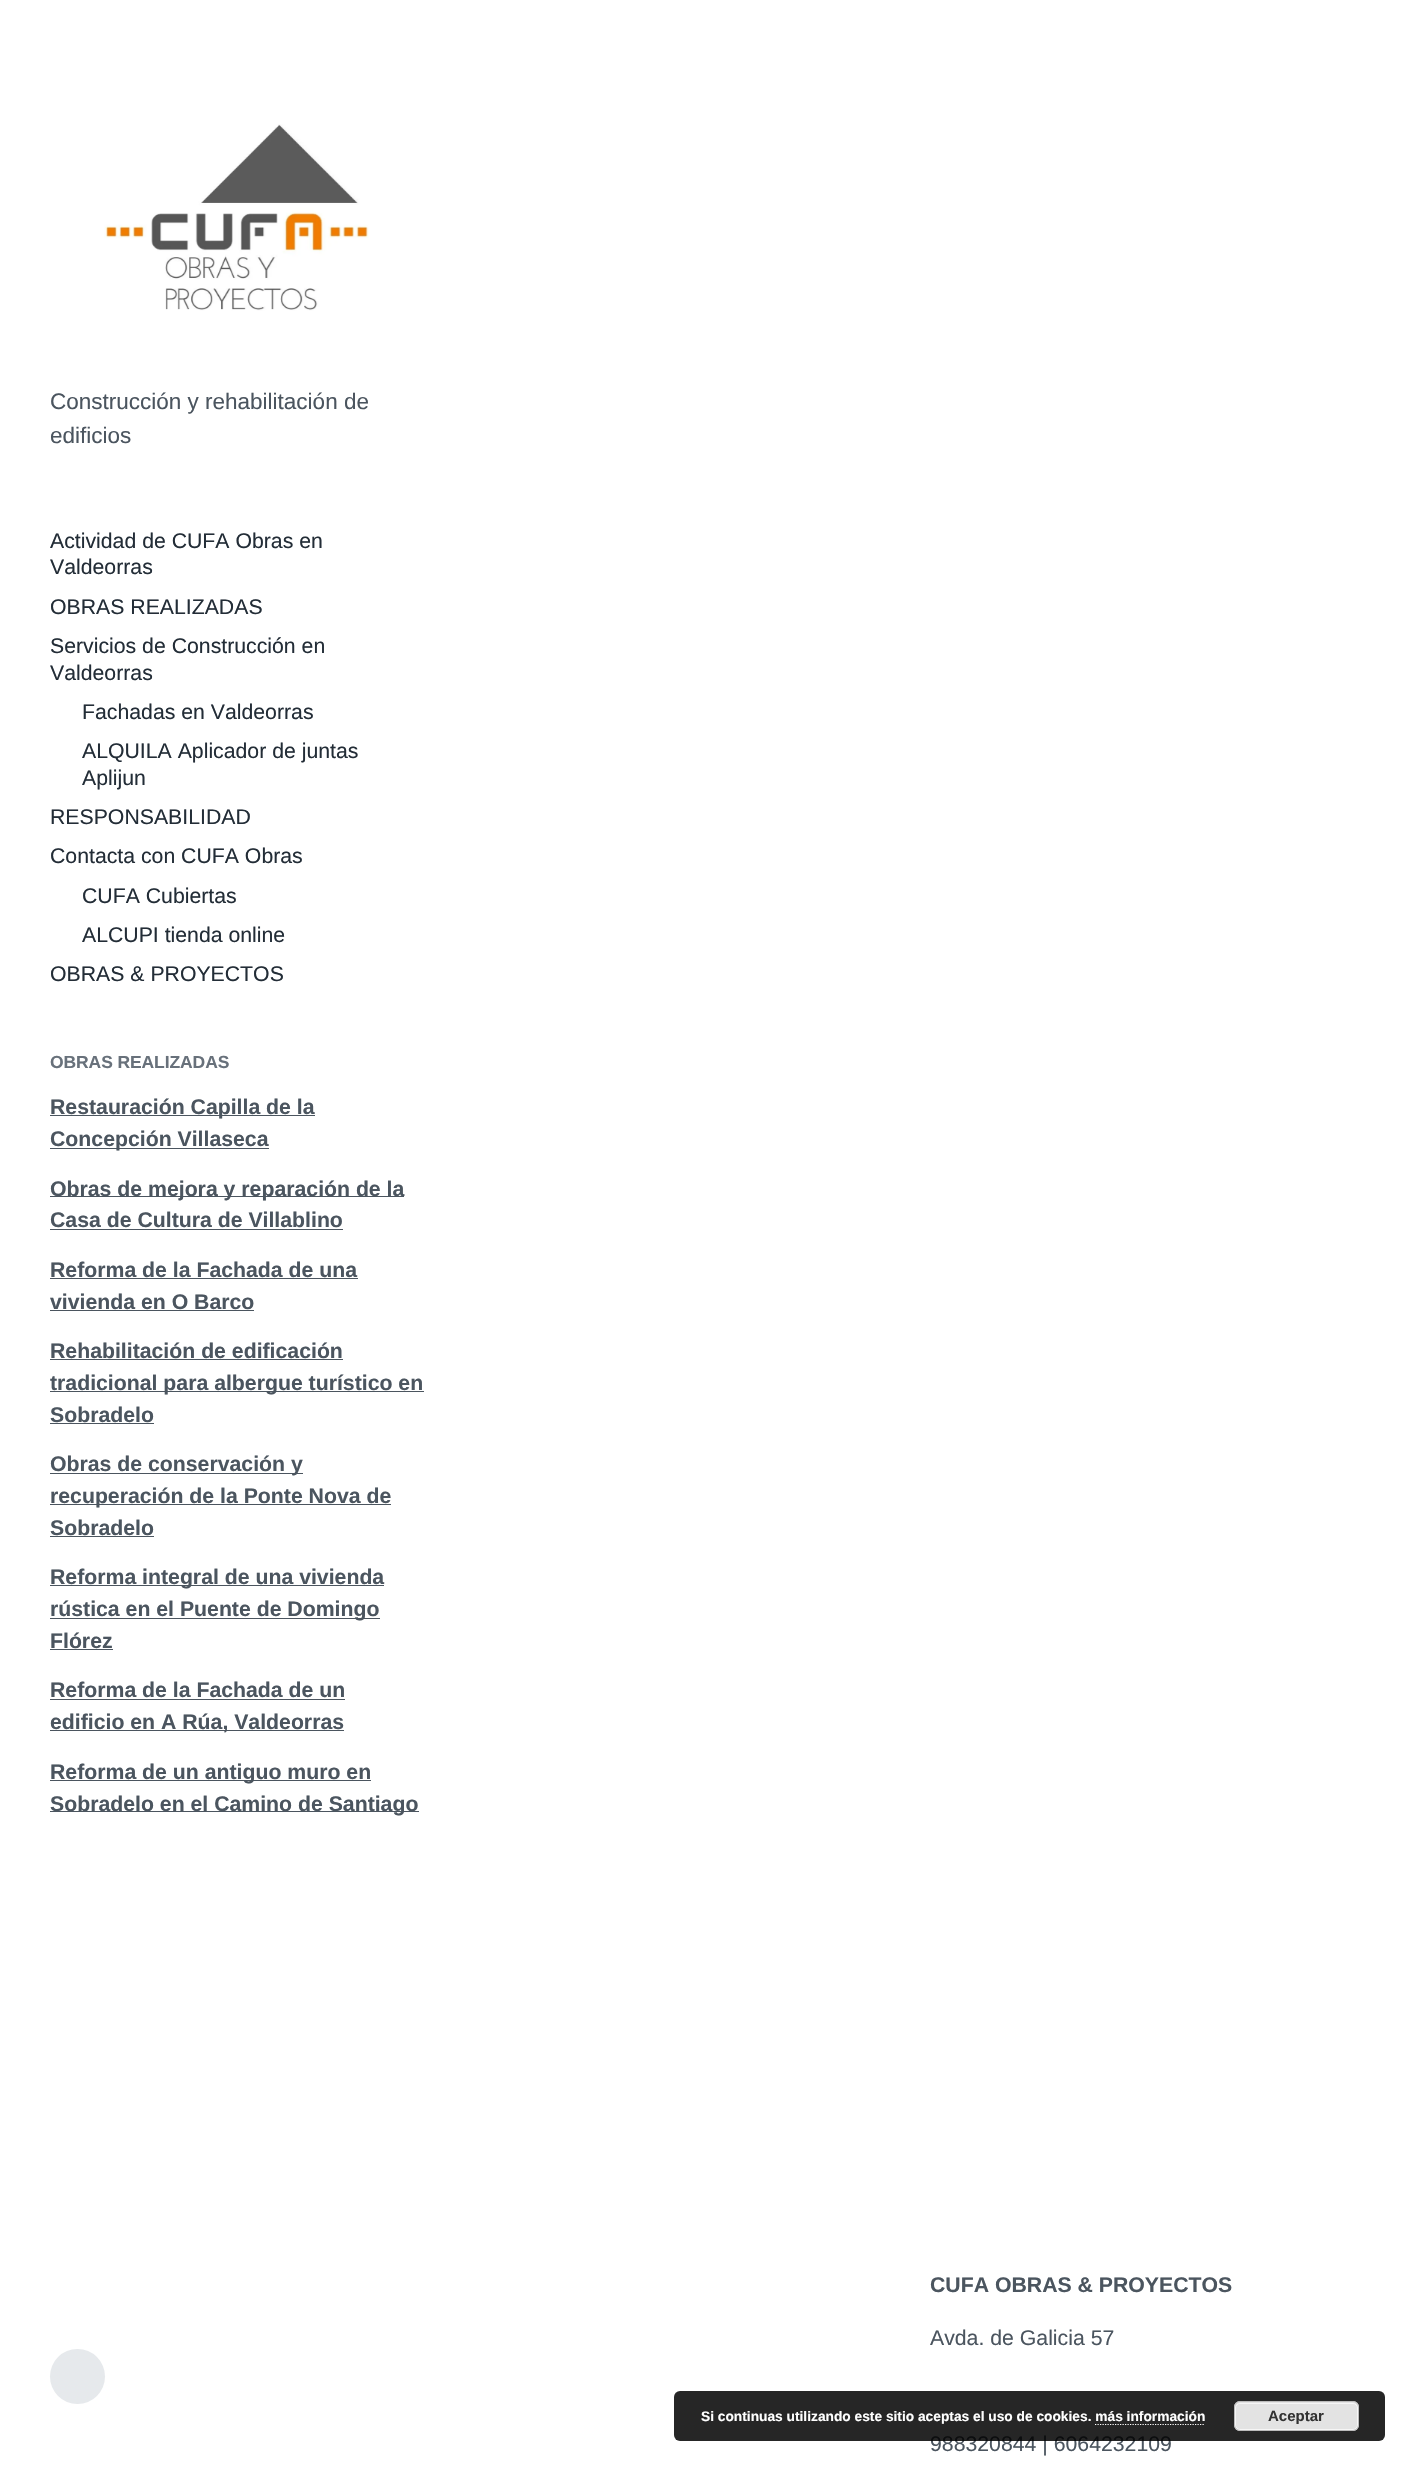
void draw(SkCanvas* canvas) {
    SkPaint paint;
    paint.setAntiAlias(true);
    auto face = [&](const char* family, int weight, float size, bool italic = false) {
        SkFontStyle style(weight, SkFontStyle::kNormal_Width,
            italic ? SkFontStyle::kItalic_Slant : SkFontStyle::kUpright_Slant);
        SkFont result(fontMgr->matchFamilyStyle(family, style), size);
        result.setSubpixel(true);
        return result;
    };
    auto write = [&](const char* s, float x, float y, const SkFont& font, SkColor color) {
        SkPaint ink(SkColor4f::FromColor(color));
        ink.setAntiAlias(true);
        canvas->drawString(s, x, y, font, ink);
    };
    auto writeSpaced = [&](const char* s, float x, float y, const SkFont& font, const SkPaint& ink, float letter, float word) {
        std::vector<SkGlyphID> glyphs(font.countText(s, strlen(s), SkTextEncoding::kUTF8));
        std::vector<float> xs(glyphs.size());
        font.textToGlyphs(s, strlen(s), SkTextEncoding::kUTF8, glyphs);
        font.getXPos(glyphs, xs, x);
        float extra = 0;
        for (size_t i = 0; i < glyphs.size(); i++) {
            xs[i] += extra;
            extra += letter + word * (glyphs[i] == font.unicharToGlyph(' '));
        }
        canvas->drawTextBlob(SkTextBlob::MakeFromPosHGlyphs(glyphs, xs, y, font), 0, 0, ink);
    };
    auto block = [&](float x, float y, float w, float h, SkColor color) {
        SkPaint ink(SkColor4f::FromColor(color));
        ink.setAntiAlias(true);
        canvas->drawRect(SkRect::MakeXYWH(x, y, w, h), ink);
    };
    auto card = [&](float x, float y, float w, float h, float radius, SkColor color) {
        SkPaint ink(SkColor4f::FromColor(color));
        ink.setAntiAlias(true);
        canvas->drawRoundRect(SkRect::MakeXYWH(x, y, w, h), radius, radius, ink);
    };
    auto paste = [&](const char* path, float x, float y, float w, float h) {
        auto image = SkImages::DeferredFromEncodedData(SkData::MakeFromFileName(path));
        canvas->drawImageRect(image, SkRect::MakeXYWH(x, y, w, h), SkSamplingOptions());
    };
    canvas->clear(SK_ColorWHITE);
    paste("pic1.png", 104, 124, 265, 187);
    auto kFont1 = face("Liberation Sans", 400, 22.5f);
    write("Construcción y rehabilitación de", 50, 409, kFont1, SkColorSetRGB(75, 85, 95));
    write("edificios", 50, 443, kFont1, SkColorSetRGB(75, 85, 95));
    auto kFont2 = face("Liberation Sans", 400, 21.25f);
    write("Actividad de CUFA Obras en", 50, 548, kFont2, SkColorSetRGB(35, 45, 55));
    write("Valdeorras", 50, 574, kFont2, SkColorSetRGB(35, 45, 55));
    write("OBRAS REALIZADAS", 50, 614, kFont2, SkColorSetRGB(35, 45, 55));
    write("Servicios de Construcción en", 50, 653, kFont2, SkColorSetRGB(35, 45, 55));
    write("Valdeorras", 50, 680, kFont2, SkColorSetRGB(35, 45, 55));
    write("Fachadas en Valdeorras", 82, 719, kFont2, SkColorSetRGB(35, 45, 55));
    write("ALQUILA Aplicador de juntas", 82, 758, kFont2, SkColorSetRGB(35, 45, 55));
    write("Aplijun", 82, 785, kFont2, SkColorSetRGB(35, 45, 55));
    write("RESPONSABILIDAD", 50, 824, kFont2, SkColorSetRGB(35, 45, 55));
    write("Contacta con CUFA Obras", 50, 863, kFont2, SkColorSetRGB(35, 45, 55));
    write("CUFA Cubiertas", 82, 903, kFont2, SkColorSetRGB(35, 45, 55));
    write("ALCUPI tienda online", 82, 942, kFont2, SkColorSetRGB(35, 45, 55));
    write("OBRAS & PROYECTOS", 50, 981, kFont2, SkColorSetRGB(35, 45, 55));
    auto kFont3 = face("Liberation Sans", 700, 17.5f);
    paint.setColor(SkColorSetRGB(104, 113, 123));
    writeSpaced("OBRAS REALIZADAS", 50, 1068, kFont3, paint, -0.1f, 0);
    block(50, 1115, 265, 1, SkColorSetRGB(75, 85, 95));
    auto kFont4 = face("Liberation Sans", 700, 21.25f);
    write("Restauración Capilla de la", 50, 1114, kFont4, SkColorSetRGB(75, 85, 95));
    block(50, 1148, 219, 1, SkColorSetRGB(75, 85, 95));
    write("Concepción Villaseca", 50, 1146, kFont4, SkColorSetRGB(75, 85, 95));
    block(50, 1196, 354, 1, SkColorSetRGB(75, 85, 95));
    write("Obras de mejora y reparación de la", 50, 1196, kFont4, SkColorSetRGB(75, 85, 95));
    write("Casa de Cultura de Villablino", 50, 1227, kFont4, SkColorSetRGB(75, 85, 95));
    block(50, 1229, 293, 1, SkColorSetRGB(75, 85, 95));
    write("Reforma de la Fachada de una", 50, 1277, kFont4, SkColorSetRGB(75, 85, 95));
    block(50, 1278, 308, 1, SkColorSetRGB(75, 85, 95));
    write("vivienda en O Barco", 50, 1309, kFont4, SkColorSetRGB(75, 85, 95));
    block(50, 1310, 204, 1, SkColorSetRGB(75, 85, 95));
    write("Rehabilitación de edificación", 50, 1358, kFont4, SkColorSetRGB(75, 85, 95));
    block(50, 1359, 293, 1, SkColorSetRGB(75, 85, 95));
    block(50, 1391, 374, 1, SkColorSetRGB(75, 85, 95));
    write("tradicional para albergue turístico en", 50, 1390, kFont4, SkColorSetRGB(75, 85, 95));
    write("Sobradelo", 50, 1422, kFont4, SkColorSetRGB(75, 85, 95));
    block(50, 1423, 104, 1, SkColorSetRGB(75, 85, 95));
    block(50, 1473, 253, 1, SkColorSetRGB(75, 85, 95));
    write("Obras de conservación y", 50, 1471, kFont4, SkColorSetRGB(75, 85, 95));
    block(50, 1504, 341, 1, SkColorSetRGB(75, 85, 95));
    write("recuperación de la Ponte Nova de", 50, 1503, kFont4, SkColorSetRGB(75, 85, 95));
    write("Sobradelo", 50, 1535, kFont4, SkColorSetRGB(75, 85, 95));
    block(50, 1536, 104, 1, SkColorSetRGB(75, 85, 95));
    block(50, 1585, 334, 1, SkColorSetRGB(75, 85, 95));
    write("Reforma integral de una vivienda", 50, 1584, kFont4, SkColorSetRGB(75, 85, 95));
    block(50, 1618, 330, 1, SkColorSetRGB(75, 85, 95));
    write("rústica en el Puente de Domingo", 50, 1616, kFont4, SkColorSetRGB(75, 85, 95));
    write("Flórez", 50, 1648, kFont4, SkColorSetRGB(75, 85, 95));
    block(50, 1649, 63, 1, SkColorSetRGB(75, 85, 95));
    write("Reforma de la Fachada de un", 50, 1697, kFont4, SkColorSetRGB(75, 85, 95));
    block(50, 1699, 295, 1, SkColorSetRGB(75, 85, 95));
    block(50, 1730, 294, 1, SkColorSetRGB(75, 85, 95));
    write("edificio en A Rúa, Valdeorras", 50, 1729, kFont4, SkColorSetRGB(75, 85, 95));
    block(50, 1780, 321, 1, SkColorSetRGB(75, 85, 95));
    write("Reforma de un antiguo muro en", 50, 1779, kFont4, SkColorSetRGB(75, 85, 95));
    block(50, 1811, 369, 1, SkColorSetRGB(75, 85, 95));
    write("Sobradelo en el Camino de Santiago", 50, 1811, kFont4, SkColorSetRGB(75, 85, 95));
    paint.setColor(SkColorSetRGB(230, 233, 236));
    canvas->drawCircle(77.5f, 2376.5f, 27.5f, paint);
    write("CUFA OBRAS & PROYECTOS", 930, 2292, kFont4, SkColorSetRGB(75, 85, 95));
    write("Avda. de Galicia 57", 930, 2345, kFont2, SkColorSetRGB(75, 85, 95));
    write("988320844 | 6064232109", 930, 2451, kFont2, SkColorSetRGB(75, 85, 95));
    card(674, 2391, 711, 50, 6, SkColorSetARGB(217, 0, 0, 0));
    auto kFont5 = face("Liberation Sans", 700, 13.75f);
    write("Si continuas utilizando este sitio aceptas el uso de cookies. más información", 701, 2421, kFont5, SK_ColorWHITE);
    card(1234, 2401, 125, 30, 6, SkColorSetRGB(227, 227, 227));
    paint.setStyle(SkPaint::kStroke_Style);
    paint.setStrokeWidth(1);
    paint.setColor(SkColorSetRGB(246, 246, 246));
    canvas->drawRoundRect(SkRect::MakeXYWH(1235.5f, 2403.5f, 122, 26), 4.5f, 4.5f, paint);
    paint.setColor(SkColorSetRGB(187, 187, 187));
    canvas->drawRoundRect(SkRect::MakeXYWH(1234.5f, 2401.5f, 124, 29), 5.5f, 5.5f, paint);
    auto kFont6 = face("Liberation Sans", 700, 15);
    write("Aceptar", 1268, 2421, kFont6, SkColorSetRGB(51, 51, 51));
    paint.setStrokeWidth(1.2f);
    paint.setColor(SK_ColorWHITE);
    paint.setPathEffect(SkDashPathEffect::Make({{1.25f, 1.25f}}, 0));
    canvas->drawPath(SkPathBuilder().moveTo(1095, 2424.5f).lineTo(1205, 2424.5f).detach(), paint);
    paint.setPathEffect(nullptr);
}
